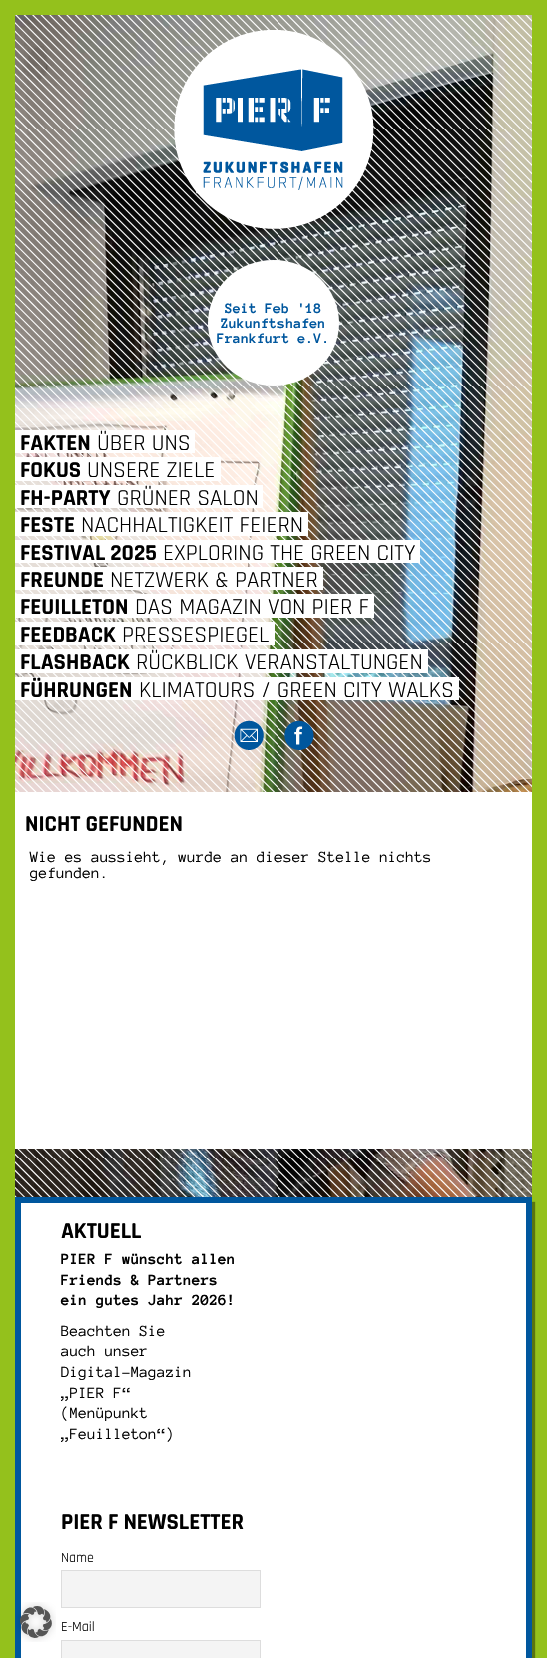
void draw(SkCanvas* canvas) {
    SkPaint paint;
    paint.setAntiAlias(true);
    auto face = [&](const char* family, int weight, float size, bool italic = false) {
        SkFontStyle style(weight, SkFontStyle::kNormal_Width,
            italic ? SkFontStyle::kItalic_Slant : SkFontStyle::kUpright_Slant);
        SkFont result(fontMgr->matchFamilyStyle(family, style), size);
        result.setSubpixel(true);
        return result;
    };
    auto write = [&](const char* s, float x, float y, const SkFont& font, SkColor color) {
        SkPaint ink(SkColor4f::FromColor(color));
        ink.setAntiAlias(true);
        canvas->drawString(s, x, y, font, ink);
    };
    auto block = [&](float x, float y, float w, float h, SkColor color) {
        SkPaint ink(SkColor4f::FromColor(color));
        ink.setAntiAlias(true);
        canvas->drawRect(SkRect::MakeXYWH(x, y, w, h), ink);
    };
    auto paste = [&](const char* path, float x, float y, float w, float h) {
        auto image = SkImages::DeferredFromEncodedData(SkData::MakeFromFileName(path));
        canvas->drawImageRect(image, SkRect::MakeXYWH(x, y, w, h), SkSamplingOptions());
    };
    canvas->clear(SK_ColorWHITE);
    paste("pic1.png", 15, 15, 517, 1182);
    paste("pic2.png", 15, 15, 517, 1182);
    paint.setStyle(SkPaint::kStroke_Style);
    paint.setStrokeWidth(15);
    paint.setColor(SkColorSetRGB(148, 193, 28));
    canvas->drawRect(SkRect::MakeXYWH(7.5f, 7.5f, 532, 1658), paint);
    paste("pic3.png", 174, 30, 200, 199);
    paint.setStyle(SkPaint::kFill_Style);
    paint.setColor(SK_ColorWHITE);
    canvas->drawOval(SkRect::MakeXYWH(208, 260, 131, 126), paint);
    auto kFont1 = face("Anonymous Pro", 700, 14.75f);
    write("Seit Feb '18", 225, 313, kFont1, SkColorSetRGB(0, 87, 158));
    write("Zukunftshafen", 221, 328, kFont1, SkColorSetRGB(0, 87, 158));
    write("Frankfurt e.V.", 217, 343, kFont1, SkColorSetRGB(0, 87, 158));
    block(15, 430, 180, 23, SK_ColorWHITE);
    auto kFont2 = face("Rajdhani", 700, 23);
    write("FAKTEN", 20, 450, kFont2, SK_ColorBLACK);
    auto kFont3 = face("Rajdhani", 400, 23);
    write("ÜBER UNS", 97, 450, kFont3, SK_ColorBLACK);
    block(15, 457, 206, 24, SK_ColorWHITE);
    write("FOKUS", 20, 477, kFont2, SK_ColorBLACK);
    write("UNSERE ZIELE", 87, 477, kFont3, SK_ColorBLACK);
    block(15, 485, 248, 23, SK_ColorWHITE);
    write("FH-PARTY", 20, 505, kFont2, SK_ColorBLACK);
    write("GRÜNER SALON", 117, 505, kFont3, SK_ColorBLACK);
    block(15, 512, 293, 24, SK_ColorWHITE);
    write("FESTE", 20, 532, kFont2, SK_ColorBLACK);
    write("NACHHALTIGKEIT FEIERN", 81, 532, kFont3, SK_ColorBLACK);
    block(15, 540, 405, 23, SK_ColorWHITE);
    write("FESTIVAL 2025", 20, 560, kFont2, SK_ColorBLACK);
    write("EXPLORING THE GREEN CITY", 163, 560, kFont3, SK_ColorBLACK);
    block(15, 567, 308, 23, SK_ColorWHITE);
    write("FREUNDE", 20, 587, kFont2, SK_ColorBLACK);
    write("NETZWERK & PARTNER", 110, 587, kFont3, SK_ColorBLACK);
    block(15, 594, 359, 24, SK_ColorWHITE);
    write("FEUILLETON", 20, 614, kFont2, SK_ColorBLACK);
    write("DAS MAGAZIN VON PIER F", 135, 614, kFont3, SK_ColorBLACK);
    block(15, 622, 260, 23, SK_ColorWHITE);
    write("FEEDBACK", 20, 642, kFont2, SK_ColorBLACK);
    write("PRESSESPIEGEL", 122, 642, kFont3, SK_ColorBLACK);
    block(15, 649, 413, 24, SK_ColorWHITE);
    write("FLASHBACK", 20, 669, kFont2, SK_ColorBLACK);
    write("RÜCKBLICK VERANSTALTUNGEN", 136, 669, kFont3, SK_ColorBLACK);
    block(15, 677, 444, 23, SK_ColorWHITE);
    write("FÜHRUNGEN", 20, 697, kFont2, SK_ColorBLACK);
    write("KLIMATOURS / GREEN CITY WALKS", 139, 697, kFont3, SK_ColorBLACK);
    paste("pic4.png", 234, 720, 30, 30);
    paste("pic5.png", 284, 720, 30, 30);
    block(15, 792, 517, 357, SK_ColorWHITE);
    write("NICHT GEFUNDEN", 25, 831, kFont2, SK_ColorBLACK);
    auto kFont4 = face("Anonymous Pro", 400, 16);
    write("Wie es aussieht, wurde an dieser Stelle nichts", 30, 862, kFont4, SK_ColorBLACK);
    write("gefunden.", 30, 878, kFont4, SK_ColorBLACK);
    paint.setColor(SkColorSetARGB(102, 0, 0, 0));
    paint.setMaskFilter(SkMaskFilter::MakeBlur(kNormal_SkBlurStyle, 0.5f));
    canvas->drawRect(SkRect::MakeXYWH(20, 1202, 515, 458), paint);
    paint.setMaskFilter(nullptr);
    paint.setColor(SK_ColorWHITE);
    canvas->drawRect(SkRect::MakeXYWH(18, 1200, 511, 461), paint);
    paint.setStyle(SkPaint::kStroke_Style);
    paint.setStrokeWidth(6);
    paint.setColor(SkColorSetRGB(0, 87, 158));
    canvas->drawRect(SkRect::MakeXYWH(18, 1200, 511, 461), paint);
    write("AKTUELL", 61, 1238, kFont2, SK_ColorBLACK);
    auto kFont5 = face("Anonymous Pro", 700, 16);
    write("PIER F wünscht allen", 61, 1264, kFont5, SK_ColorBLACK);
    write("Friends & Partners", 61, 1285, kFont5, SK_ColorBLACK);
    write("ein gutes Jahr 2026!", 61, 1305, kFont5, SK_ColorBLACK);
    write("Beachten Sie", 61, 1336, kFont4, SK_ColorBLACK);
    write("auch unser", 61, 1356, kFont4, SK_ColorBLACK);
    write("Digital-Magazin", 61, 1377, kFont4, SK_ColorBLACK);
    write("„PIER F“", 61, 1398, kFont4, SK_ColorBLACK);
    write("(Menüpunkt", 61, 1418, kFont4, SK_ColorBLACK);
    write("„Feuilleton“)", 61, 1439, kFont4, SK_ColorBLACK);
    write("PIER F NEWSLETTER", 61, 1529, kFont2, SK_ColorBLACK);
    auto kFont6 = face("Rajdhani", 400, 14);
    write("Name", 61, 1562, kFont6, SK_ColorBLACK);
    paint.setStyle(SkPaint::kFill_Style);
    paint.setColor(SkColorSetRGB(244, 244, 244));
    canvas->drawRect(SkRect::MakeXYWH(61.5f, 1570.5f, 199, 37), paint);
    paint.setStyle(SkPaint::kStroke_Style);
    paint.setStrokeWidth(1);
    paint.setColor(SkColorSetRGB(221, 221, 221));
    canvas->drawRect(SkRect::MakeXYWH(61.5f, 1570.5f, 199, 37), paint);
    write("E-Mail", 61, 1631, kFont6, SK_ColorBLACK);
    paint.setStyle(SkPaint::kFill_Style);
    paint.setColor(SkColorSetRGB(244, 244, 244));
    canvas->drawRect(SkRect::MakeXYWH(61.5f, 1640.5f, 199, 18), paint);
    paint.setStyle(SkPaint::kStroke_Style);
    paint.setColor(SkColorSetRGB(221, 221, 221));
    canvas->drawRect(SkRect::MakeXYWH(61.5f, 1640.5f, 199, 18), paint);
    paste("pic6.png", 16, 1602, 40, 40);
}
